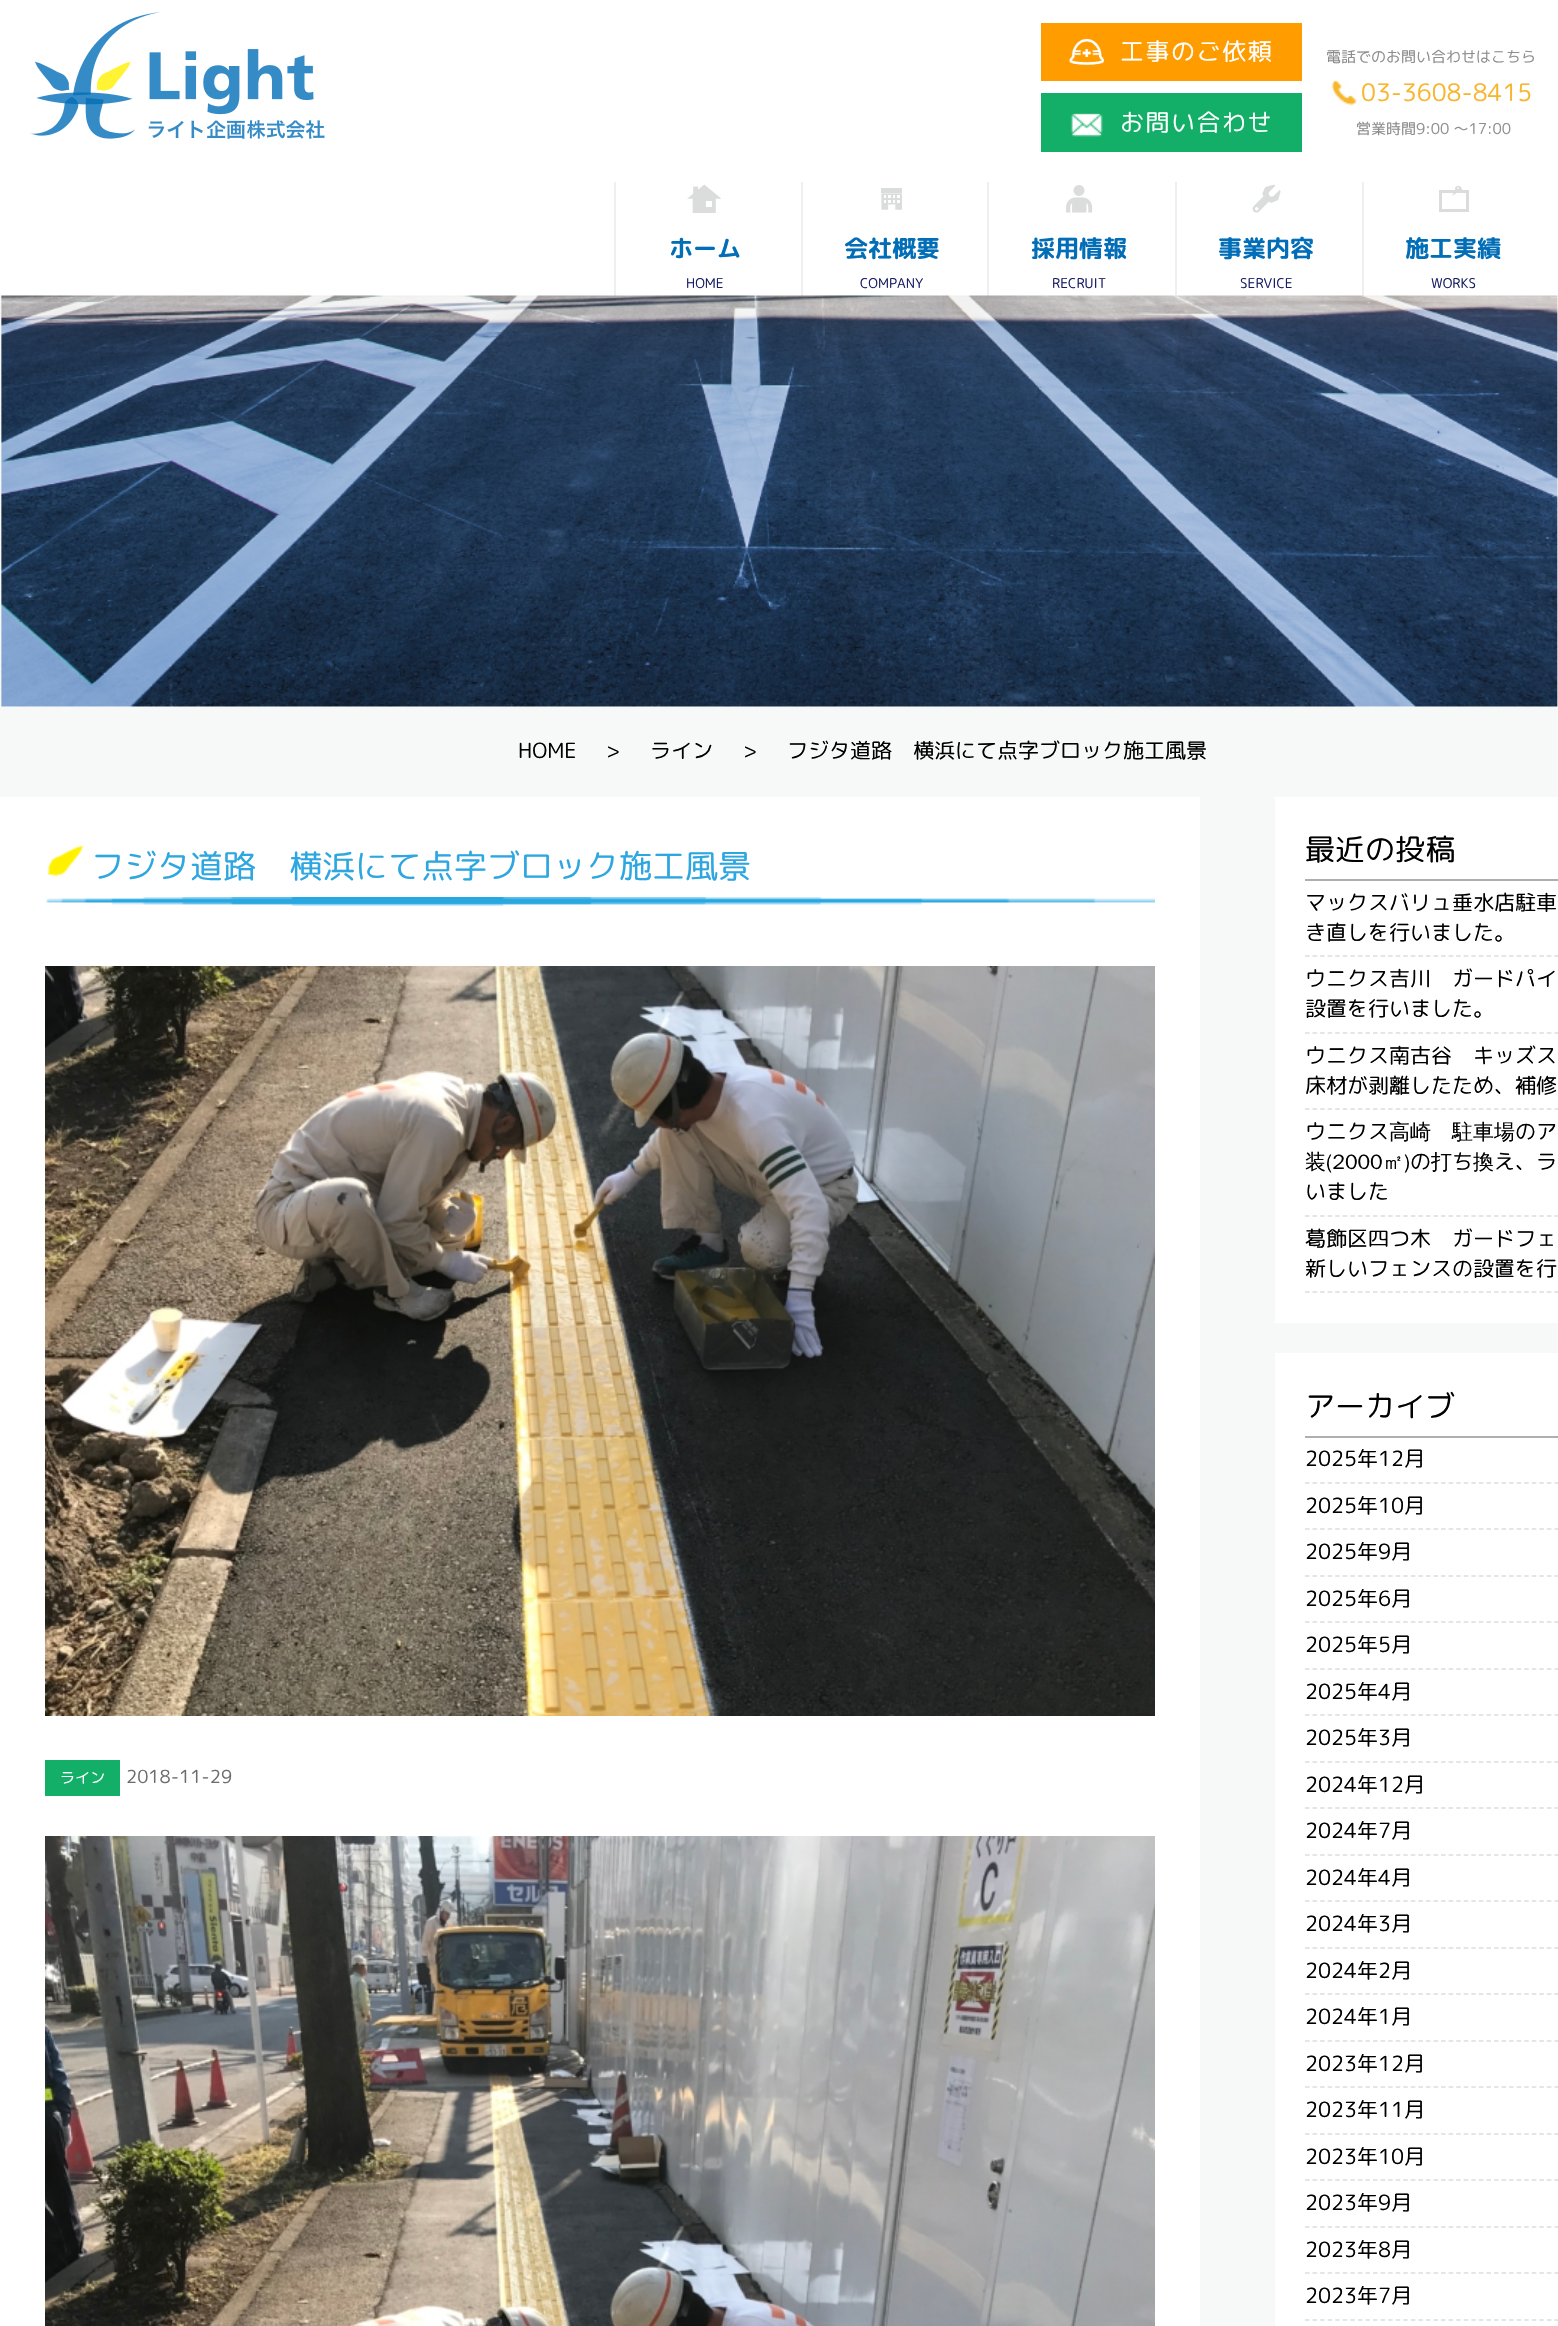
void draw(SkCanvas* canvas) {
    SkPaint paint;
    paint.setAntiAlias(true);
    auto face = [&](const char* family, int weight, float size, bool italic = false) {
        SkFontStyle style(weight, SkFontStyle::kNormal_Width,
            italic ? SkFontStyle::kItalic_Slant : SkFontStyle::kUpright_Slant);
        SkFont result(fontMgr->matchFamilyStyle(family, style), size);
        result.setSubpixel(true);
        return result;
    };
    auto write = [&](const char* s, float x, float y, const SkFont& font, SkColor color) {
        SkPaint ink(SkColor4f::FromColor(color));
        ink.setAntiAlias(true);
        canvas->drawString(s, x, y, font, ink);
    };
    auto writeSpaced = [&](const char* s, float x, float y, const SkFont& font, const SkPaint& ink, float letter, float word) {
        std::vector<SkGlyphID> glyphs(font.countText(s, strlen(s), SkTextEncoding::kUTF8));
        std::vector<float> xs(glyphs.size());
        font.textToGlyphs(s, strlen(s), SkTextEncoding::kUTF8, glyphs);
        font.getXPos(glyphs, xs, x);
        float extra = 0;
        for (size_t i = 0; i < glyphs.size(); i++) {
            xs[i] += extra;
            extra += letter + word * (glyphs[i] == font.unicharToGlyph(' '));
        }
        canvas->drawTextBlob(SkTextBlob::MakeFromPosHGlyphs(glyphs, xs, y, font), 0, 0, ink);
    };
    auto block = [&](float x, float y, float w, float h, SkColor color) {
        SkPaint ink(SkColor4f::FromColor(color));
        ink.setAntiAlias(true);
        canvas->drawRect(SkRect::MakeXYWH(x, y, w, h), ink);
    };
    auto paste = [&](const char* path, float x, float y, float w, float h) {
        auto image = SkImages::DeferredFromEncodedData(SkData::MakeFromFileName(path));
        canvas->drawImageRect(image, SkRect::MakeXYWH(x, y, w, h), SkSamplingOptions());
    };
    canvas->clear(SK_ColorWHITE);
    paste("pic1.png", 30, 12, 295, 127);
    block(1041, 23, 261, 58, SkColorSetRGB(255, 156, 0));
    paste("pic2.png", 1069, 38, 35, 27);
    auto kFont1 = face("Rounded Mplus 1c", 400, 24);
    paint.setColor(SK_ColorWHITE);
    writeSpaced("工事のご依頼", 1120, 60, kFont1, paint, 1.5f, 0);
    block(1041, 93, 261, 59, SkColorSetRGB(19, 174, 103));
    paste("pic3.png", 1070, 113, 33, 24);
    writeSpaced("お問い合わせ", 1120, 131, kFont1, paint, 1.5f, 0);
    auto kFont2 = face("Rounded Mplus 1c", 400, 15);
    write("電話でのお問い合わせはこちら", 1326, 62, kFont2, SkColorSetRGB(142, 142, 142));
    paste("pic4.png", 1331, 80, 26, 26);
    write("03-3608-8415", 1361, 101, kFont1, SkColorSetRGB(248, 182, 45));
    write("営業時間9:00 〜17:00", 1356, 134, kFont2, SkColorSetRGB(142, 142, 142));
    block(614, 182, 2, 114, SkColorSetRGB(239, 239, 239));
    paste("pic5.png", 687, 184, 34, 29);
    auto kFont3 = face("Rounded Mplus 1c Bold", 700, 24);
    write("ホーム", 669, 257, kFont3, SkColorSetRGB(3, 110, 184));
    auto kFont4 = face("Rounded Mplus 1c", 400, 13.5f);
    write("HOME", 686, 288, kFont4, SkColorSetRGB(23, 28, 97));
    block(801, 182, 2, 114, SkColorSetRGB(239, 239, 239));
    paste("pic6.png", 881, 188, 21, 22);
    write("会社概要", 844, 257, kFont3, SkColorSetRGB(3, 110, 184));
    write("COMPANY", 860, 288, kFont4, SkColorSetRGB(23, 28, 97));
    block(987, 182, 2, 114, SkColorSetRGB(239, 239, 239));
    paste("pic7.png", 1066, 185, 27, 28);
    write("採用情報", 1031, 257, kFont3, SkColorSetRGB(3, 110, 184));
    write("RECRUIT", 1052, 288, kFont4, SkColorSetRGB(23, 28, 97));
    block(1175, 182, 2, 114, SkColorSetRGB(239, 239, 239));
    paste("pic8.png", 1252, 184, 29, 29);
    write("事業内容", 1218, 257, kFont3, SkColorSetRGB(3, 110, 184));
    write("SERVICE", 1240, 288, kFont4, SkColorSetRGB(23, 28, 97));
    block(1362, 182, 2, 114, SkColorSetRGB(239, 239, 239));
    paste("pic9.png", 1439, 186, 30, 26);
    write("施工実績", 1405, 257, kFont3, SkColorSetRGB(3, 110, 184));
    write("WORKS", 1431, 288, kFont4, SkColorSetRGB(23, 28, 97));
    paste("pic10.png", 0, 295, 1558, 412);
    block(0, 707, 1558, 1619, SkColorSetRGB(247, 248, 248));
    auto kFont5 = face("Rounded Mplus 1c", 400, 21);
    write("HOME", 518, 758, kFont5, SK_ColorBLACK);
    write(">", 606, 758, kFont5, SK_ColorBLACK);
    write("ライン", 650, 758, kFont5, SK_ColorBLACK);
    write(">", 743, 758, kFont5, SK_ColorBLACK);
    write("フジタ道路　横浜にて点字ブロック施工風景", 787, 758, kFont5, SK_ColorBLACK);
    block(0, 797, 1200, 1529, SK_ColorWHITE);
    paste("pic11.png", 46, 897, 1109, 9);
    paste("pic12.png", 47, 845, 38, 32);
    auto kFont6 = face("Rounded Mplus 1c", 400, 33);
    write("フジタ道路　横浜にて点字ブロック施工風景", 91, 878, kFont6, SkColorSetRGB(46, 167, 224));
    paste("pic13.png", 45, 966, 1110, 750);
    block(45, 1760, 75, 36, SkColorSetRGB(19, 174, 103));
    write("ライン", 60, 1783, kFont2, SK_ColorWHITE);
    auto kFont7 = face("Rounded Mplus 1c", 400, 18);
    write("2018-11-29", 126, 1783, kFont7, SkColorSetRGB(108, 108, 108));
    paste("pic14.png", 45, 1836, 1110, 490);
    block(1275, 797, 283, 526, SK_ColorWHITE);
    block(1305, 879, 253, 2, SkColorSetRGB(175, 175, 175));
    auto kFont8 = face("Rounded Mplus 1c", 400, 30);
    write("最近の投稿", 1305, 860, kFont8, SK_ColorBLACK);
    paint.setStyle(SkPaint::kStroke_Style);
    paint.setStrokeWidth(1.5f);
    paint.setColor(SkColorSetRGB(221, 221, 221));
    paint.setPathEffect(SkDashPathEffect::Make({{4.5f, 3.06f}}, 0));
    canvas->drawPath(SkPathBuilder().moveTo(1305, 956).lineTo(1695, 956).detach(), paint);
    paint.setPathEffect(nullptr);
    write("マックスバリュ垂水店駐車", 1305, 910, kFont5, SK_ColorBLACK);
    write("き直しを行いました。", 1305, 940, kFont5, SK_ColorBLACK);
    paint.setPathEffect(SkDashPathEffect::Make({{4.5f, 3.06f}}, 0));
    canvas->drawPath(SkPathBuilder().moveTo(1305, 1033).lineTo(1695, 1033).detach(), paint);
    paint.setPathEffect(nullptr);
    write("ウニクス吉川　ガードパイ", 1305, 986, kFont5, SK_ColorBLACK);
    write("設置を行いました。", 1305, 1016, kFont5, SK_ColorBLACK);
    paint.setPathEffect(SkDashPathEffect::Make({{4.5f, 3.06f}}, 0));
    canvas->drawPath(SkPathBuilder().moveTo(1305, 1109).lineTo(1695, 1109).detach(), paint);
    paint.setPathEffect(nullptr);
    write("ウニクス南古谷　キッズス", 1305, 1063, kFont5, SK_ColorBLACK);
    write("床材が剥離したため、補修", 1305, 1093, kFont5, SK_ColorBLACK);
    paint.setPathEffect(SkDashPathEffect::Make({{4.5f, 3.06f}}, 0));
    canvas->drawPath(SkPathBuilder().moveTo(1305, 1216).lineTo(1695, 1216).detach(), paint);
    paint.setPathEffect(nullptr);
    write("ウニクス", 1305, 1139, kFont5, SK_ColorBLACK);
    auto kFont9 = face("WenQuanYi Zen Hei", 500, 21);
    write("高崎　駐車場", 1389, 1139, kFont9, SK_ColorBLACK);
    write("のア", 1515, 1139, kFont5, SK_ColorBLACK);
    write("装(2000㎡)", 1305, 1169, kFont9, SK_ColorBLACK);
    write("の", 1410, 1169, kFont5, SK_ColorBLACK);
    write("打", 1431, 1169, kFont9, SK_ColorBLACK);
    write("ち", 1452, 1169, kFont5, SK_ColorBLACK);
    write("換", 1473, 1169, kFont9, SK_ColorBLACK);
    write("え、ラ", 1494, 1169, kFont5, SK_ColorBLACK);
    write("いました", 1305, 1199, kFont5, SK_ColorBLACK);
    paint.setPathEffect(SkDashPathEffect::Make({{4.5f, 3.06f}}, 0));
    canvas->drawPath(SkPathBuilder().moveTo(1305, 1292).lineTo(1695, 1292).detach(), paint);
    paint.setPathEffect(nullptr);
    write("葛飾区四つ木　ガードフェ", 1305, 1246, kFont5, SK_ColorBLACK);
    write("新しいフェンスの設置を行", 1305, 1276, kFont5, SK_ColorBLACK);
    block(1275, 1353, 283, 973, SK_ColorWHITE);
    block(1305, 1436, 253, 2, SkColorSetRGB(175, 175, 175));
    write("アーカイブ", 1305, 1417, kFont8, SK_ColorBLACK);
    paint.setPathEffect(SkDashPathEffect::Make({{4.5f, 3.06f}}, 0));
    canvas->drawPath(SkPathBuilder().moveTo(1305, 1483).lineTo(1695, 1483).detach(), paint);
    paint.setPathEffect(nullptr);
    write("2025年12月", 1305, 1466, kFont5, SK_ColorBLACK);
    paint.setPathEffect(SkDashPathEffect::Make({{4.5f, 3.06f}}, 0));
    canvas->drawPath(SkPathBuilder().moveTo(1305, 1529).lineTo(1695, 1529).detach(), paint);
    paint.setPathEffect(nullptr);
    write("2025年10月", 1305, 1513, kFont5, SK_ColorBLACK);
    paint.setPathEffect(SkDashPathEffect::Make({{4.5f, 3.06f}}, 0));
    canvas->drawPath(SkPathBuilder().moveTo(1305, 1576).lineTo(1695, 1576).detach(), paint);
    paint.setPathEffect(nullptr);
    write("2025年9月", 1305, 1559, kFont5, SK_ColorBLACK);
    paint.setPathEffect(SkDashPathEffect::Make({{4.5f, 3.06f}}, 0));
    canvas->drawPath(SkPathBuilder().moveTo(1305, 1622).lineTo(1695, 1622).detach(), paint);
    paint.setPathEffect(nullptr);
    write("2025年6月", 1305, 1606, kFont5, SK_ColorBLACK);
    paint.setPathEffect(SkDashPathEffect::Make({{4.5f, 3.06f}}, 0));
    canvas->drawPath(SkPathBuilder().moveTo(1305, 1669).lineTo(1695, 1669).detach(), paint);
    paint.setPathEffect(nullptr);
    write("2025年5月", 1305, 1652, kFont5, SK_ColorBLACK);
    paint.setPathEffect(SkDashPathEffect::Make({{4.5f, 3.06f}}, 0));
    canvas->drawPath(SkPathBuilder().moveTo(1305, 1715).lineTo(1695, 1715).detach(), paint);
    paint.setPathEffect(nullptr);
    write("2025年4月", 1305, 1699, kFont5, SK_ColorBLACK);
    paint.setPathEffect(SkDashPathEffect::Make({{4.5f, 3.06f}}, 0));
    canvas->drawPath(SkPathBuilder().moveTo(1305, 1762).lineTo(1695, 1762).detach(), paint);
    paint.setPathEffect(nullptr);
    write("2025年3月", 1305, 1745, kFont5, SK_ColorBLACK);
    paint.setPathEffect(SkDashPathEffect::Make({{4.5f, 3.06f}}, 0));
    canvas->drawPath(SkPathBuilder().moveTo(1305, 1808).lineTo(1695, 1808).detach(), paint);
    paint.setPathEffect(nullptr);
    write("2024年12月", 1305, 1792, kFont5, SK_ColorBLACK);
    paint.setPathEffect(SkDashPathEffect::Make({{4.5f, 3.06f}}, 0));
    canvas->drawPath(SkPathBuilder().moveTo(1305, 1855).lineTo(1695, 1855).detach(), paint);
    paint.setPathEffect(nullptr);
    write("2024年7月", 1305, 1838, kFont5, SK_ColorBLACK);
    paint.setPathEffect(SkDashPathEffect::Make({{4.5f, 3.06f}}, 0));
    canvas->drawPath(SkPathBuilder().moveTo(1305, 1901).lineTo(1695, 1901).detach(), paint);
    paint.setPathEffect(nullptr);
    write("2024年4月", 1305, 1885, kFont5, SK_ColorBLACK);
    paint.setPathEffect(SkDashPathEffect::Make({{4.5f, 3.06f}}, 0));
    canvas->drawPath(SkPathBuilder().moveTo(1305, 1948).lineTo(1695, 1948).detach(), paint);
    paint.setPathEffect(nullptr);
    write("2024年3月", 1305, 1931, kFont5, SK_ColorBLACK);
    paint.setPathEffect(SkDashPathEffect::Make({{4.5f, 3.06f}}, 0));
    canvas->drawPath(SkPathBuilder().moveTo(1305, 1994).lineTo(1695, 1994).detach(), paint);
    paint.setPathEffect(nullptr);
    write("2024年2月", 1305, 1978, kFont5, SK_ColorBLACK);
    paint.setPathEffect(SkDashPathEffect::Make({{4.5f, 3.06f}}, 0));
    canvas->drawPath(SkPathBuilder().moveTo(1305, 2041).lineTo(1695, 2041).detach(), paint);
    paint.setPathEffect(nullptr);
    write("2024年1月", 1305, 2024, kFont5, SK_ColorBLACK);
    paint.setPathEffect(SkDashPathEffect::Make({{4.5f, 3.06f}}, 0));
    canvas->drawPath(SkPathBuilder().moveTo(1305, 2087).lineTo(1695, 2087).detach(), paint);
    paint.setPathEffect(nullptr);
    write("2023年12月", 1305, 2071, kFont5, SK_ColorBLACK);
    paint.setPathEffect(SkDashPathEffect::Make({{4.5f, 3.06f}}, 0));
    canvas->drawPath(SkPathBuilder().moveTo(1305, 2134).lineTo(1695, 2134).detach(), paint);
    paint.setPathEffect(nullptr);
    write("2023年11月", 1305, 2117, kFont5, SK_ColorBLACK);
    paint.setPathEffect(SkDashPathEffect::Make({{4.5f, 3.06f}}, 0));
    canvas->drawPath(SkPathBuilder().moveTo(1305, 2180).lineTo(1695, 2180).detach(), paint);
    paint.setPathEffect(nullptr);
    write("2023年10月", 1305, 2164, kFont5, SK_ColorBLACK);
    paint.setPathEffect(SkDashPathEffect::Make({{4.5f, 3.06f}}, 0));
    canvas->drawPath(SkPathBuilder().moveTo(1305, 2227).lineTo(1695, 2227).detach(), paint);
    paint.setPathEffect(nullptr);
    write("2023年9月", 1305, 2210, kFont5, SK_ColorBLACK);
    paint.setPathEffect(SkDashPathEffect::Make({{4.5f, 3.06f}}, 0));
    canvas->drawPath(SkPathBuilder().moveTo(1305, 2273).lineTo(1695, 2273).detach(), paint);
    paint.setPathEffect(nullptr);
    write("2023年8月", 1305, 2257, kFont5, SK_ColorBLACK);
    paint.setPathEffect(SkDashPathEffect::Make({{4.5f, 3.06f}}, 0));
    canvas->drawPath(SkPathBuilder().moveTo(1305, 2320).lineTo(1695, 2320).detach(), paint);
    paint.setPathEffect(nullptr);
    write("2023年7月", 1305, 2303, kFont5, SK_ColorBLACK);
}
